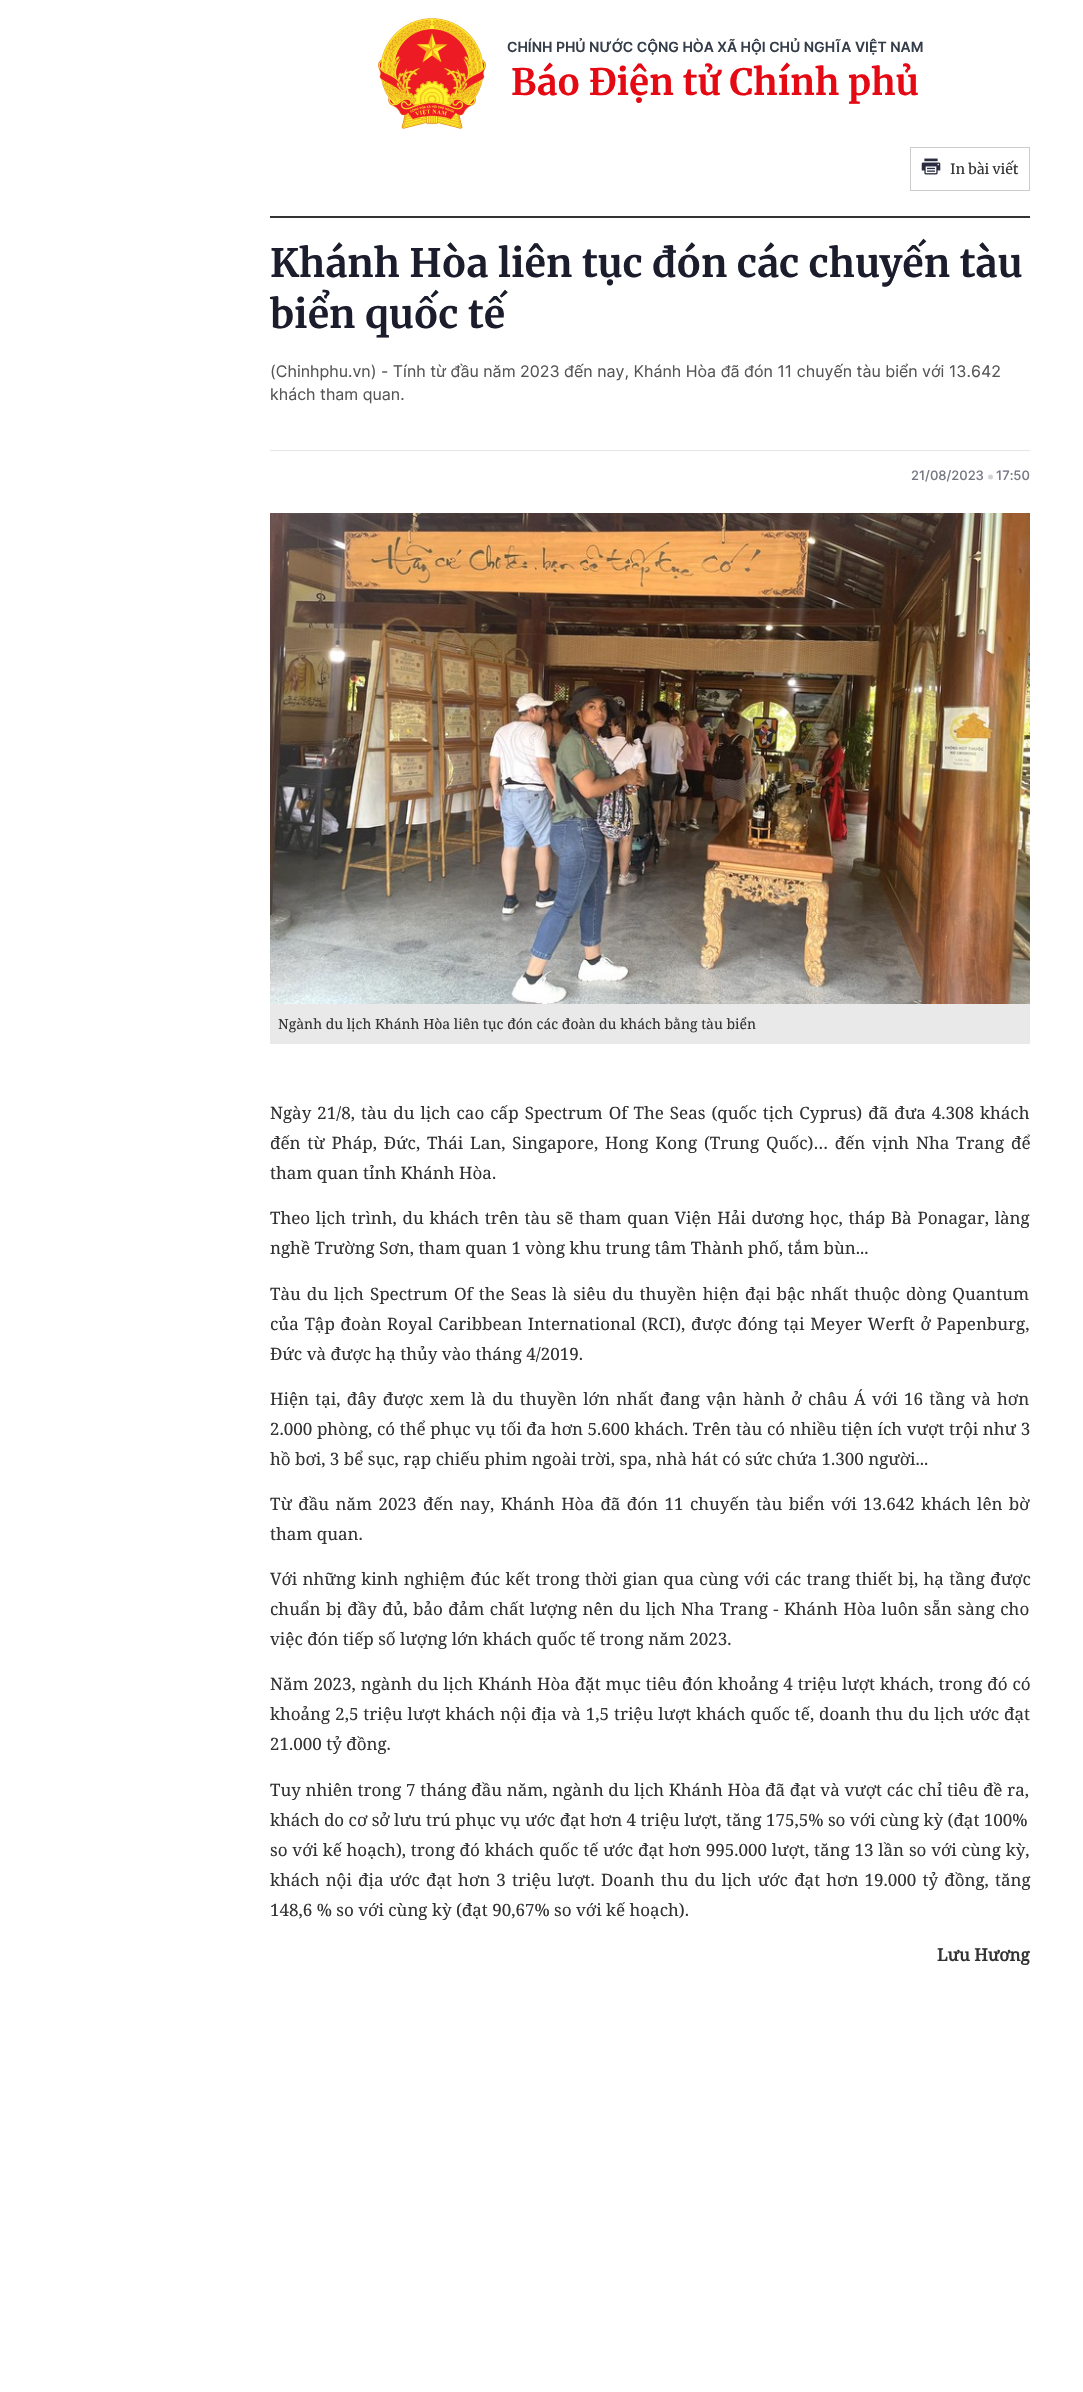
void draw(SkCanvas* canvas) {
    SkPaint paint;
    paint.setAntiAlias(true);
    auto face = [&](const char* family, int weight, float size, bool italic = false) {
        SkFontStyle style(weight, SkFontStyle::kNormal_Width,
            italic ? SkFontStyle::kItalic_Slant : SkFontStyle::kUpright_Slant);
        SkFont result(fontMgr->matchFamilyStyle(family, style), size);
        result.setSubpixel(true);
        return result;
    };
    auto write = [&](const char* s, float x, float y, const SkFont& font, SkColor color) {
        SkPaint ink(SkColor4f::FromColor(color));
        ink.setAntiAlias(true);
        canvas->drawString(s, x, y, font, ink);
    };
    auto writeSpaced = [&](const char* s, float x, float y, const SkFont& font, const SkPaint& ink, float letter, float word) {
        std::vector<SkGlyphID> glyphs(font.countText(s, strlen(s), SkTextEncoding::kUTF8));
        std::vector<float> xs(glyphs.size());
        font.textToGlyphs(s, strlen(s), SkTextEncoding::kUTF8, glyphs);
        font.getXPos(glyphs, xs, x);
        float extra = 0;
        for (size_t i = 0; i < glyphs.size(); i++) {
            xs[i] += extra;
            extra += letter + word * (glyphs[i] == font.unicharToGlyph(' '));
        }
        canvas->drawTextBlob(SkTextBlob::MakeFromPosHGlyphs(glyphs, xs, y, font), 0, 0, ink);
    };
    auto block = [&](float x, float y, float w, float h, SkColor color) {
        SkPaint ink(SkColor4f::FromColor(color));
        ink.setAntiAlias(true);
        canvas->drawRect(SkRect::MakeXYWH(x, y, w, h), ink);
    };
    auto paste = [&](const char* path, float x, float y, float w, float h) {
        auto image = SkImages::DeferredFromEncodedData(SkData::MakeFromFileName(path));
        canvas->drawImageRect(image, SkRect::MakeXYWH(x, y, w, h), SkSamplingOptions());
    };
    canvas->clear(SK_ColorWHITE);
    block(270, 216, 760, 2, SkColorSetRGB(51, 51, 51));
    paste("pic1.png", 378, 18, 108, 111);
    auto kFont1 = face("Inter", 600, 14);
    write("CHÍNH PHỦ NƯỚC CỘNG HÒA XÃ HỘI CHỦ NGHĨA VIỆT NAM", 507, 52, kFont1, SkColorSetRGB(52, 61, 73));
    auto kFont2 = face("Merriweather", 700, 36.4f);
    write("Báo Điện tử Chính phủ", 511, 95, kFont2, SkColorSetRGB(228, 9, 19));
    paint.setStyle(SkPaint::kStroke_Style);
    paint.setStrokeWidth(1);
    paint.setColor(SkColorSetRGB(204, 204, 204));
    canvas->drawRect(SkRect::MakeXYWH(910.5f, 147.5f, 119, 43), paint);
    paste("pic2.png", 921, 158, 20, 17);
    auto kFont3 = face("Merriweather", 400, 14);
    write("In bài viết", 950, 174, kFont3, SkColorSetRGB(51, 51, 51));
    auto kFont4 = face("Merriweather", 700, 39);
    write("Khánh Hòa liên tục đón các chuyến tàu", 270, 277, kFont4, SkColorSetRGB(27, 29, 45));
    write("biển quốc tế", 270, 328, kFont4, SkColorSetRGB(27, 29, 45));
    auto kFont5 = face("Inter", 400, 16);
    write("(Chinhphu.vn) - Tính từ đầu năm 2023 đến nay, Khánh Hòa đã đón 11 chuyến tàu biển với 13.642", 270, 377, kFont5, SkColorSetRGB(85, 85, 85));
    write("khách tham quan.", 270, 400, kFont5, SkColorSetRGB(85, 85, 85));
    block(270, 450, 760, 1, SkColorSetRGB(230, 230, 230));
    auto kFont6 = face("Inter", 500, 13);
    write("21/08/2023", 911, 480, kFont6, SkColorSetRGB(117, 119, 131));
    paint.setStyle(SkPaint::kFill_Style);
    paint.setColor(SkColorSetRGB(211, 211, 215));
    canvas->drawCircle(990.5f, 477, 2.5f, paint);
    write("17:50", 996, 480, kFont6, SkColorSetRGB(117, 119, 131));
    paste("pic3.png", 270, 513, 760, 491);
    block(270, 1004, 760, 40, SkColorSetRGB(233, 233, 233));
    auto kFont7 = face("Noto Serif", 400, 14);
    write("Ngành du lịch Khánh Hòa liên tục đón các đoàn du khách bằng tàu biển", 278, 1029, kFont7, SkColorSetRGB(51, 51, 51));
    auto kFont8 = face("Noto Serif", 400, 17);
    paint.setColor(SkColorSetRGB(51, 51, 51));
    writeSpaced("Ngày 21/8, tàu du lịch cao cấp Spectrum Of The Seas (quốc tịch Cyprus) đã đưa 4.308 khách", 270, 1119, kFont8, paint, 0, 1.6f);
    writeSpaced("đến từ Pháp, Đức, Thái Lan, Singapore, Hong Kong (Trung Quốc)… đến vịnh Nha Trang để", 270, 1149, kFont8, paint, 0, 2.4f);
    write("tham quan tỉnh Khánh Hòa.", 270, 1179, kFont8, SkColorSetRGB(51, 51, 51));
    writeSpaced("Theo lịch trình, du khách trên tàu sẽ tham quan Viện Hải dương học, tháp Bà Ponagar, làng", 270, 1224, kFont8, paint, 0, 1.3f);
    write("nghề Trường Sơn, tham quan 1 vòng khu trung tâm Thành phố, tắm bùn...", 270, 1254, kFont8, SkColorSetRGB(51, 51, 51));
    writeSpaced("Tàu du lịch Spectrum Of the Seas là siêu du thuyền hiện đại bậc nhất thuộc dòng Quantum", 270, 1300, kFont8, paint, 0, 1.6f);
    writeSpaced("của Tập đoàn Royal Caribbean International (RCI), được đóng tại Meyer Werft ở Papenburg,", 270, 1330, kFont8, paint, 0, 1.3f);
    write("Đức và được hạ thủy vào tháng 4/2019.", 270, 1360, kFont8, SkColorSetRGB(51, 51, 51));
    writeSpaced("Hiện tại, đây được xem là du thuyền lớn nhất đang vận hành ở châu Á với 16 tầng và hơn", 270, 1405, kFont8, paint, 0, 1.9f);
    writeSpaced("2.000 phòng, có thể phục vụ tối đa hơn 5.600 khách. Trên tàu có nhiều tiện ích vượt trội như 3", 270, 1435, kFont8, paint, 0, 0.2f);
    write("hồ bơi, 3 bể sục, rạp chiếu phim ngoài trời, spa, nhà hát có sức chứa 1.300 người...", 270, 1465, kFont8, SkColorSetRGB(51, 51, 51));
    writeSpaced("Từ đầu năm 2023 đến nay, Khánh Hòa đã đón 11 chuyến tàu biển với 13.642 khách lên bờ", 270, 1510, kFont8, paint, 0, 2);
    write("tham quan.", 270, 1540, kFont8, SkColorSetRGB(51, 51, 51));
    writeSpaced("Với những kinh nghiệm đúc kết trong thời gian qua cùng với các trang thiết bị, hạ tầng được", 270, 1585, kFont8, paint, 0, 0.9f);
    writeSpaced("chuẩn bị đầy đủ, bảo đảm chất lượng nên du lịch Nha Trang - Khánh Hòa luôn sẵn sàng cho", 270, 1615, kFont8, paint, 0, 1);
    write("việc đón tiếp số lượng lớn khách quốc tế trong năm 2023.", 270, 1645, kFont8, SkColorSetRGB(51, 51, 51));
    writeSpaced("Năm 2023, ngành du lịch Khánh Hòa đặt mục tiêu đón khoảng 4 triệu lượt khách, trong đó có", 270, 1690, kFont8, paint, 0, 0.5f);
    writeSpaced("khoảng 2,5 triệu lượt khách nội địa và 1,5 triệu lượt khách quốc tế, doanh thu du lịch ước đạt", 270, 1720, kFont8, paint, 0, 0.5f);
    write("21.000 tỷ đồng.", 270, 1750, kFont8, SkColorSetRGB(51, 51, 51));
    writeSpaced("Tuy nhiên trong 7 tháng đầu năm, ngành du lịch Khánh Hòa đã đạt và vượt các chỉ tiêu đề ra,", 270, 1796, kFont8, paint, 0, 0.25f);
    write("khách do cơ sở lưu trú phục vụ ước đạt hơn 4 triệu lượt, tăng 175,5% so với cùng kỳ (đạt 100%", 270, 1826, kFont8, SkColorSetRGB(51, 51, 51));
    writeSpaced("so với kế hoạch), trong đó khách quốc tế ước đạt hơn 995.000 lượt, tăng 13 lần so với cùng kỳ,", 270, 1856, kFont8, paint, 0, 0.4f);
    writeSpaced("khách nội địa ước đạt hơn 3 triệu lượt. Doanh thu du lịch ước đạt hơn 19.000 tỷ đồng, tăng", 270, 1886, kFont8, paint, 0, 1.75f);
    write("148,6 % so với cùng kỳ (đạt 90,67% so với kế hoạch).", 270, 1916, kFont8, SkColorSetRGB(51, 51, 51));
    auto kFont9 = face("Noto Serif", 700, 17);
    write("Lưu Hương", 937, 1961, kFont9, SkColorSetRGB(51, 51, 51));
}
